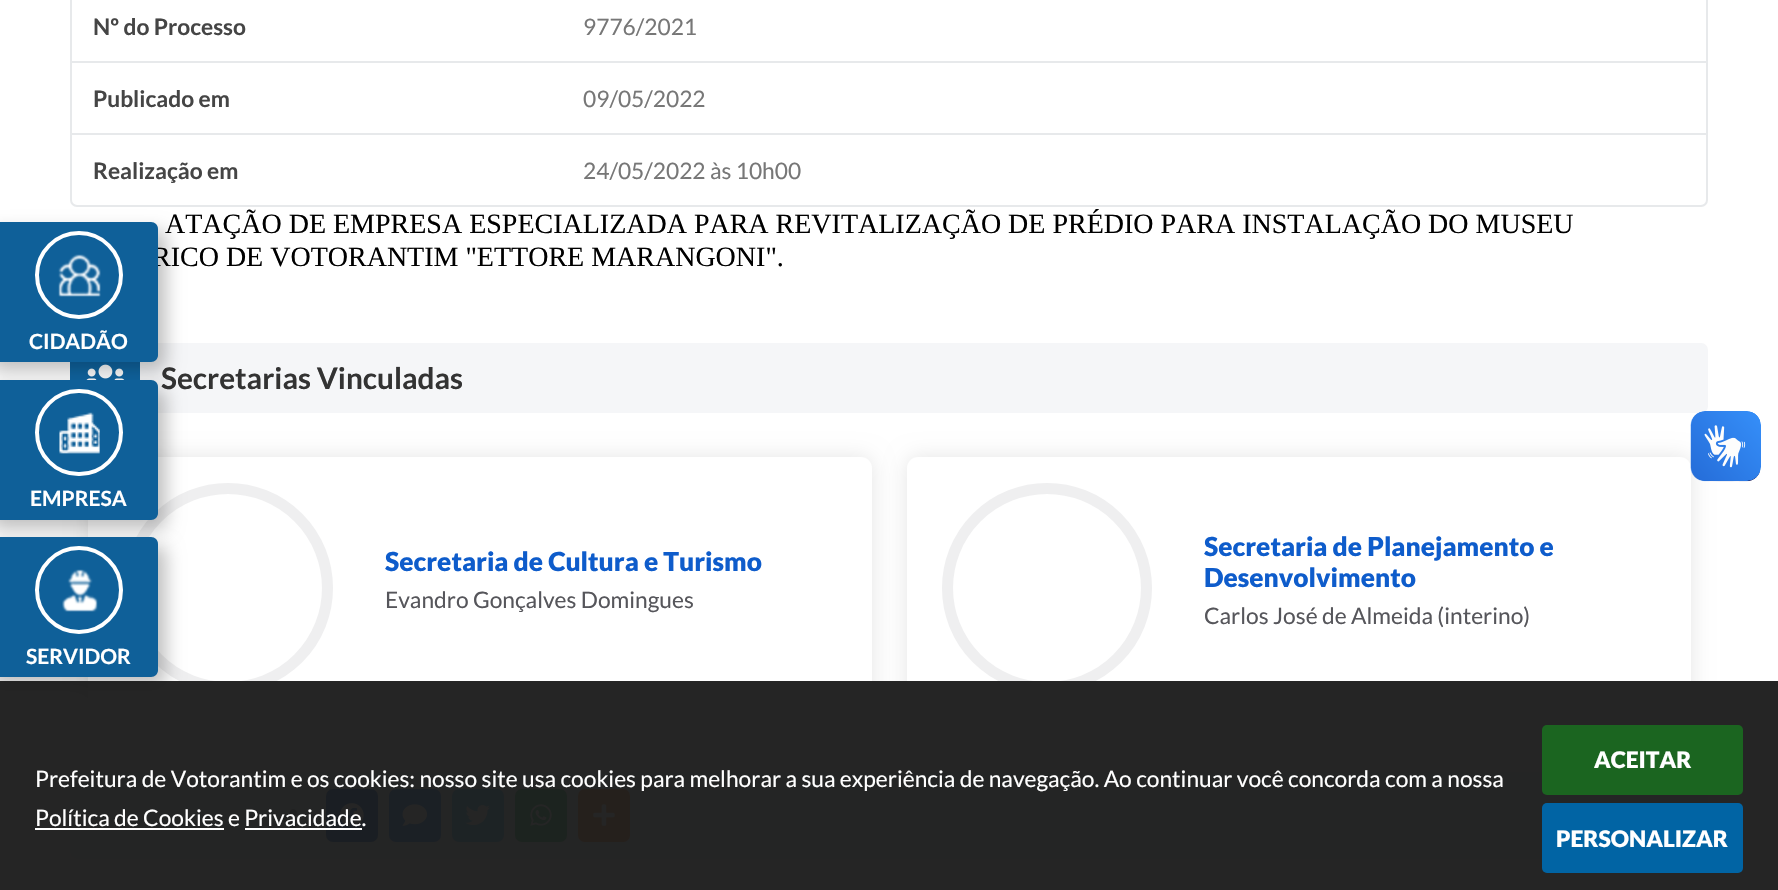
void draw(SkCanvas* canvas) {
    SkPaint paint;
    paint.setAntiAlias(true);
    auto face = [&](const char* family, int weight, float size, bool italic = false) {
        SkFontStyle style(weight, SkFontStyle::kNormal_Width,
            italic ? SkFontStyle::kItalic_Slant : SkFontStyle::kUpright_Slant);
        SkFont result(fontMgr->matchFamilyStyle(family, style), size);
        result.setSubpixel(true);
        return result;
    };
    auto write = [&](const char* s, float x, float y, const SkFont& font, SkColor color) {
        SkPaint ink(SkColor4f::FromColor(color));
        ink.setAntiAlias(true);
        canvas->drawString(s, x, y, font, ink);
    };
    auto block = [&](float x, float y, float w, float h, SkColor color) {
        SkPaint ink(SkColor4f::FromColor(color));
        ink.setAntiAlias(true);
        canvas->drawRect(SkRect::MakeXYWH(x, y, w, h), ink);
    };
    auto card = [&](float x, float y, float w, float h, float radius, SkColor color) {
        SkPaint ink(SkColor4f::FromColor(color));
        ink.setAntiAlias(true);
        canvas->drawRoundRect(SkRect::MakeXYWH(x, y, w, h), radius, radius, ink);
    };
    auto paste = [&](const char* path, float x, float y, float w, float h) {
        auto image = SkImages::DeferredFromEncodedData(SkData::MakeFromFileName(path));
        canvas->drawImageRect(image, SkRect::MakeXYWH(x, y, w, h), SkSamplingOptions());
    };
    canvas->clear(SK_ColorWHITE);
    paint.setStyle(SkPaint::kStroke_Style);
    paint.setStrokeWidth(2);
    paint.setColor(SkColorSetRGB(231, 233, 235));
    canvas->drawRoundRect(SkRect::MakeXYWH(71, -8, 1636, 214), 6, 6, paint);
    auto kFont1 = face("Lato", 700, 22.75f);
    write("Nº do Processo", 93, 35, kFont1, SkColorSetRGB(69, 69, 69));
    auto kFont2 = face("Lato", 400, 22.75f);
    write("9776/2021", 583, 35, kFont2, SkColorSetRGB(119, 119, 119));
    block(72, 61, 1634, 2, SkColorSetRGB(231, 233, 235));
    write("Publicado em", 93, 107, kFont1, SkColorSetRGB(69, 69, 69));
    write("09/05/2022", 583, 107, kFont2, SkColorSetRGB(119, 119, 119));
    block(72, 133, 1634, 2, SkColorSetRGB(231, 233, 235));
    write("Realização em", 93, 179, kFont1, SkColorSetRGB(69, 69, 69));
    write("24/05/2022 às 10h00", 583, 179, kFont2, SkColorSetRGB(119, 119, 119));
    auto kFont3 = face("Liberation Serif", 400, 28);
    write("ATAÇÃO DE EMPRESA ESPECIALIZADA PARA REVITALIZAÇÃO DE PRÉDIO PARA INSTALAÇÃO DO MUSEU", 165, 233, kFont3, SK_ColorBLACK);
    write("RICO DE VOTORANTIM \"ETTORE MARANGONI\".", 152, 266, kFont3, SK_ColorBLACK);
    card(70, 343, 1638, 70, 7, SkColorSetRGB(245, 246, 248));
    block(70, 362, 70, 18, SkColorSetRGB(15, 101, 162));
    paste("pic1.png", 86, 364, 39, 16);
    auto kFont4 = face("Lato", 700, 29.75f);
    write("Secretarias Vinculadas", 161, 389, kFont4, SkColorSetRGB(51, 51, 51));
    paint.setStyle(SkPaint::kFill_Style);
    paint.setColor(SkColorSetARGB(26, 0, 0, 0));
    paint.setMaskFilter(SkMaskFilter::MakeBlur(kNormal_SkBlurStyle, 10.5f));
    canvas->drawRoundRect(SkRect::MakeXYWH(88, 457, 784, 262), 11, 11, paint);
    paint.setMaskFilter(nullptr);
    card(88, 457, 784, 262, 11, SK_ColorWHITE);
    paint.setStyle(SkPaint::kStroke_Style);
    paint.setStrokeWidth(11);
    paint.setColor(SkColorSetRGB(239, 239, 240));
    canvas->drawCircle(228, 588, 99.5f, paint);
    auto kFont5 = face("Lato", 900, 26.25f);
    write("Secretaria de Cultura e Turismo", 385, 571, kFont5, SkColorSetRGB(14, 92, 203));
    write("Evandro Gonçalves Domingues", 385, 608, kFont2, SkColorSetRGB(86, 86, 91));
    paint.setStyle(SkPaint::kFill_Style);
    paint.setColor(SkColorSetARGB(26, 0, 0, 0));
    paint.setMaskFilter(SkMaskFilter::MakeBlur(kNormal_SkBlurStyle, 10.5f));
    canvas->drawRoundRect(SkRect::MakeXYWH(907, 457, 784, 262), 11, 11, paint);
    paint.setMaskFilter(nullptr);
    card(907, 457, 784, 262, 11, SK_ColorWHITE);
    paint.setStyle(SkPaint::kStroke_Style);
    paint.setColor(SkColorSetRGB(239, 239, 240));
    canvas->drawCircle(1047, 588, 99.5f, paint);
    write("Secretaria de Planejamento e", 1204, 556, kFont5, SkColorSetRGB(14, 92, 203));
    write("Desenvolvimento", 1204, 587, kFont5, SkColorSetRGB(14, 92, 203));
    write("Carlos José de Almeida (interino)", 1204, 624, kFont2, SkColorSetRGB(86, 86, 91));
    card(70, 772, 1638, 87, 7, SkColorSetRGB(235, 237, 238));
    paste("pic2.png", 280, 809, 17, 19);
    card(326, 789, 52, 53, 7, SkColorSetRGB(38, 117, 197));
    paste("pic3.png", 339, 803, 25, 24);
    card(389, 789, 52, 53, 7, SkColorSetRGB(50, 144, 240));
    paste("pic4.png", 402, 804, 25, 22);
    card(452, 789, 52, 53, 7, SkColorSetRGB(96, 201, 255));
    paste("pic5.png", 465, 805, 25, 20);
    card(515, 789, 52, 53, 7, SkColorSetRGB(64, 210, 119));
    paste("pic6.png", 530, 804, 22, 22);
    card(578, 789, 52, 53, 7, SkColorSetRGB(255, 148, 62));
    paste("pic7.png", 593, 804, 22, 22);
    card(70, 877, 1638, 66, 52.5f, SkColorSetRGB(240, 242, 244));
    paint.setStyle(SkPaint::kFill_Style);
    paint.setColor(SkColorSetARGB(64, 0, 0, 0));
    paint.setMaskFilter(SkMaskFilter::MakeBlur(kNormal_SkBlurStyle, 9));
    canvas->drawRoundRect(SkRect::MakeXYWH(-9, 231, 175, 140), 7, 7, paint);
    paint.setMaskFilter(nullptr);
    paint.setColor(SkColorSetRGB(15, 96, 153));
    canvas->drawPath(SkPathBuilder().moveTo(-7, 222).lineTo(151, 222).cubicTo(155, 222, 158, 225, 158, 229).lineTo(158, 355).cubicTo(158, 359, 155, 362, 151, 362).lineTo(-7, 362).close().detach(), paint);
    paint.setStyle(SkPaint::kStroke_Style);
    paint.setStrokeWidth(4);
    paint.setColor(SK_ColorWHITE);
    canvas->drawCircle(79, 275, 42, paint);
    paste("pic8.png", 58, 254, 43, 43);
    auto kFont6 = face("Lato", 700, 21);
    write("CIDADÃO", 29, 349, kFont6, SK_ColorWHITE);
    paint.setStyle(SkPaint::kFill_Style);
    paint.setColor(SkColorSetARGB(64, 0, 0, 0));
    paint.setMaskFilter(SkMaskFilter::MakeBlur(kNormal_SkBlurStyle, 9));
    canvas->drawRoundRect(SkRect::MakeXYWH(-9, 389, 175, 140), 7, 7, paint);
    paint.setMaskFilter(nullptr);
    paint.setColor(SkColorSetRGB(15, 96, 153));
    canvas->drawPath(SkPathBuilder().moveTo(-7, 380).lineTo(151, 380).cubicTo(155, 380, 158, 383, 158, 387).lineTo(158, 513).cubicTo(158, 517, 155, 520, 151, 520).lineTo(-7, 520).close().detach(), paint);
    paint.setStyle(SkPaint::kStroke_Style);
    paint.setColor(SK_ColorWHITE);
    canvas->drawRoundRect(SkRect::MakeXYWH(37, 391, 84, 83), 41.5f, 41.5f, paint);
    paste("pic9.png", 59, 412, 41, 42);
    write("EMPRESA", 30, 506, kFont6, SK_ColorWHITE);
    paint.setStyle(SkPaint::kFill_Style);
    paint.setColor(SkColorSetARGB(64, 0, 0, 0));
    paint.setMaskFilter(SkMaskFilter::MakeBlur(kNormal_SkBlurStyle, 9));
    canvas->drawRoundRect(SkRect::MakeXYWH(-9, 546, 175, 140), 7, 7, paint);
    paint.setMaskFilter(nullptr);
    paint.setColor(SkColorSetRGB(15, 96, 153));
    canvas->drawPath(SkPathBuilder().moveTo(-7, 537).lineTo(151, 537).cubicTo(155, 537, 158, 540, 158, 544).lineTo(158, 670).cubicTo(158, 674, 155, 677, 151, 677).lineTo(-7, 677).close().detach(), paint);
    paint.setStyle(SkPaint::kStroke_Style);
    paint.setColor(SK_ColorWHITE);
    canvas->drawCircle(79, 590, 42, paint);
    paste("pic10.png", 62, 569, 36, 43);
    write("SERVIDOR", 26, 664, kFont6, SK_ColorWHITE);
    paste("pic11.png", 1690, 411, 71, 71);
    paste("pic12.png", 1691, 411, 70, 70);
    block(0, 681, 1778, 209, SkColorSetARGB(242, 25, 25, 25));
    write("Prefeitura de Votorantim e os cookies: nosso site usa cookies para melhorar a sua experiência de navegação. Ao continuar você concorda com a nossa", 35, 787, kFont2, SK_ColorWHITE);
    write("Política de Cookies e Privacidade.", 35, 826, kFont2, SK_ColorWHITE);
    block(35, 828, 189, 2, SK_ColorWHITE);
    block(245, 828, 117, 2, SK_ColorWHITE);
    card(1542, 725, 201, 70, 5, SkColorSetRGB(27, 101, 32));
    auto kFont7 = face("Lato", 900, 22.75f);
    write("ACEITAR", 1594, 768, kFont7, SK_ColorWHITE);
    card(1542, 803, 201, 70, 5, SkColorSetRGB(1, 100, 164));
    write("PERSONALIZAR", 1556, 847, kFont7, SK_ColorWHITE);
}
